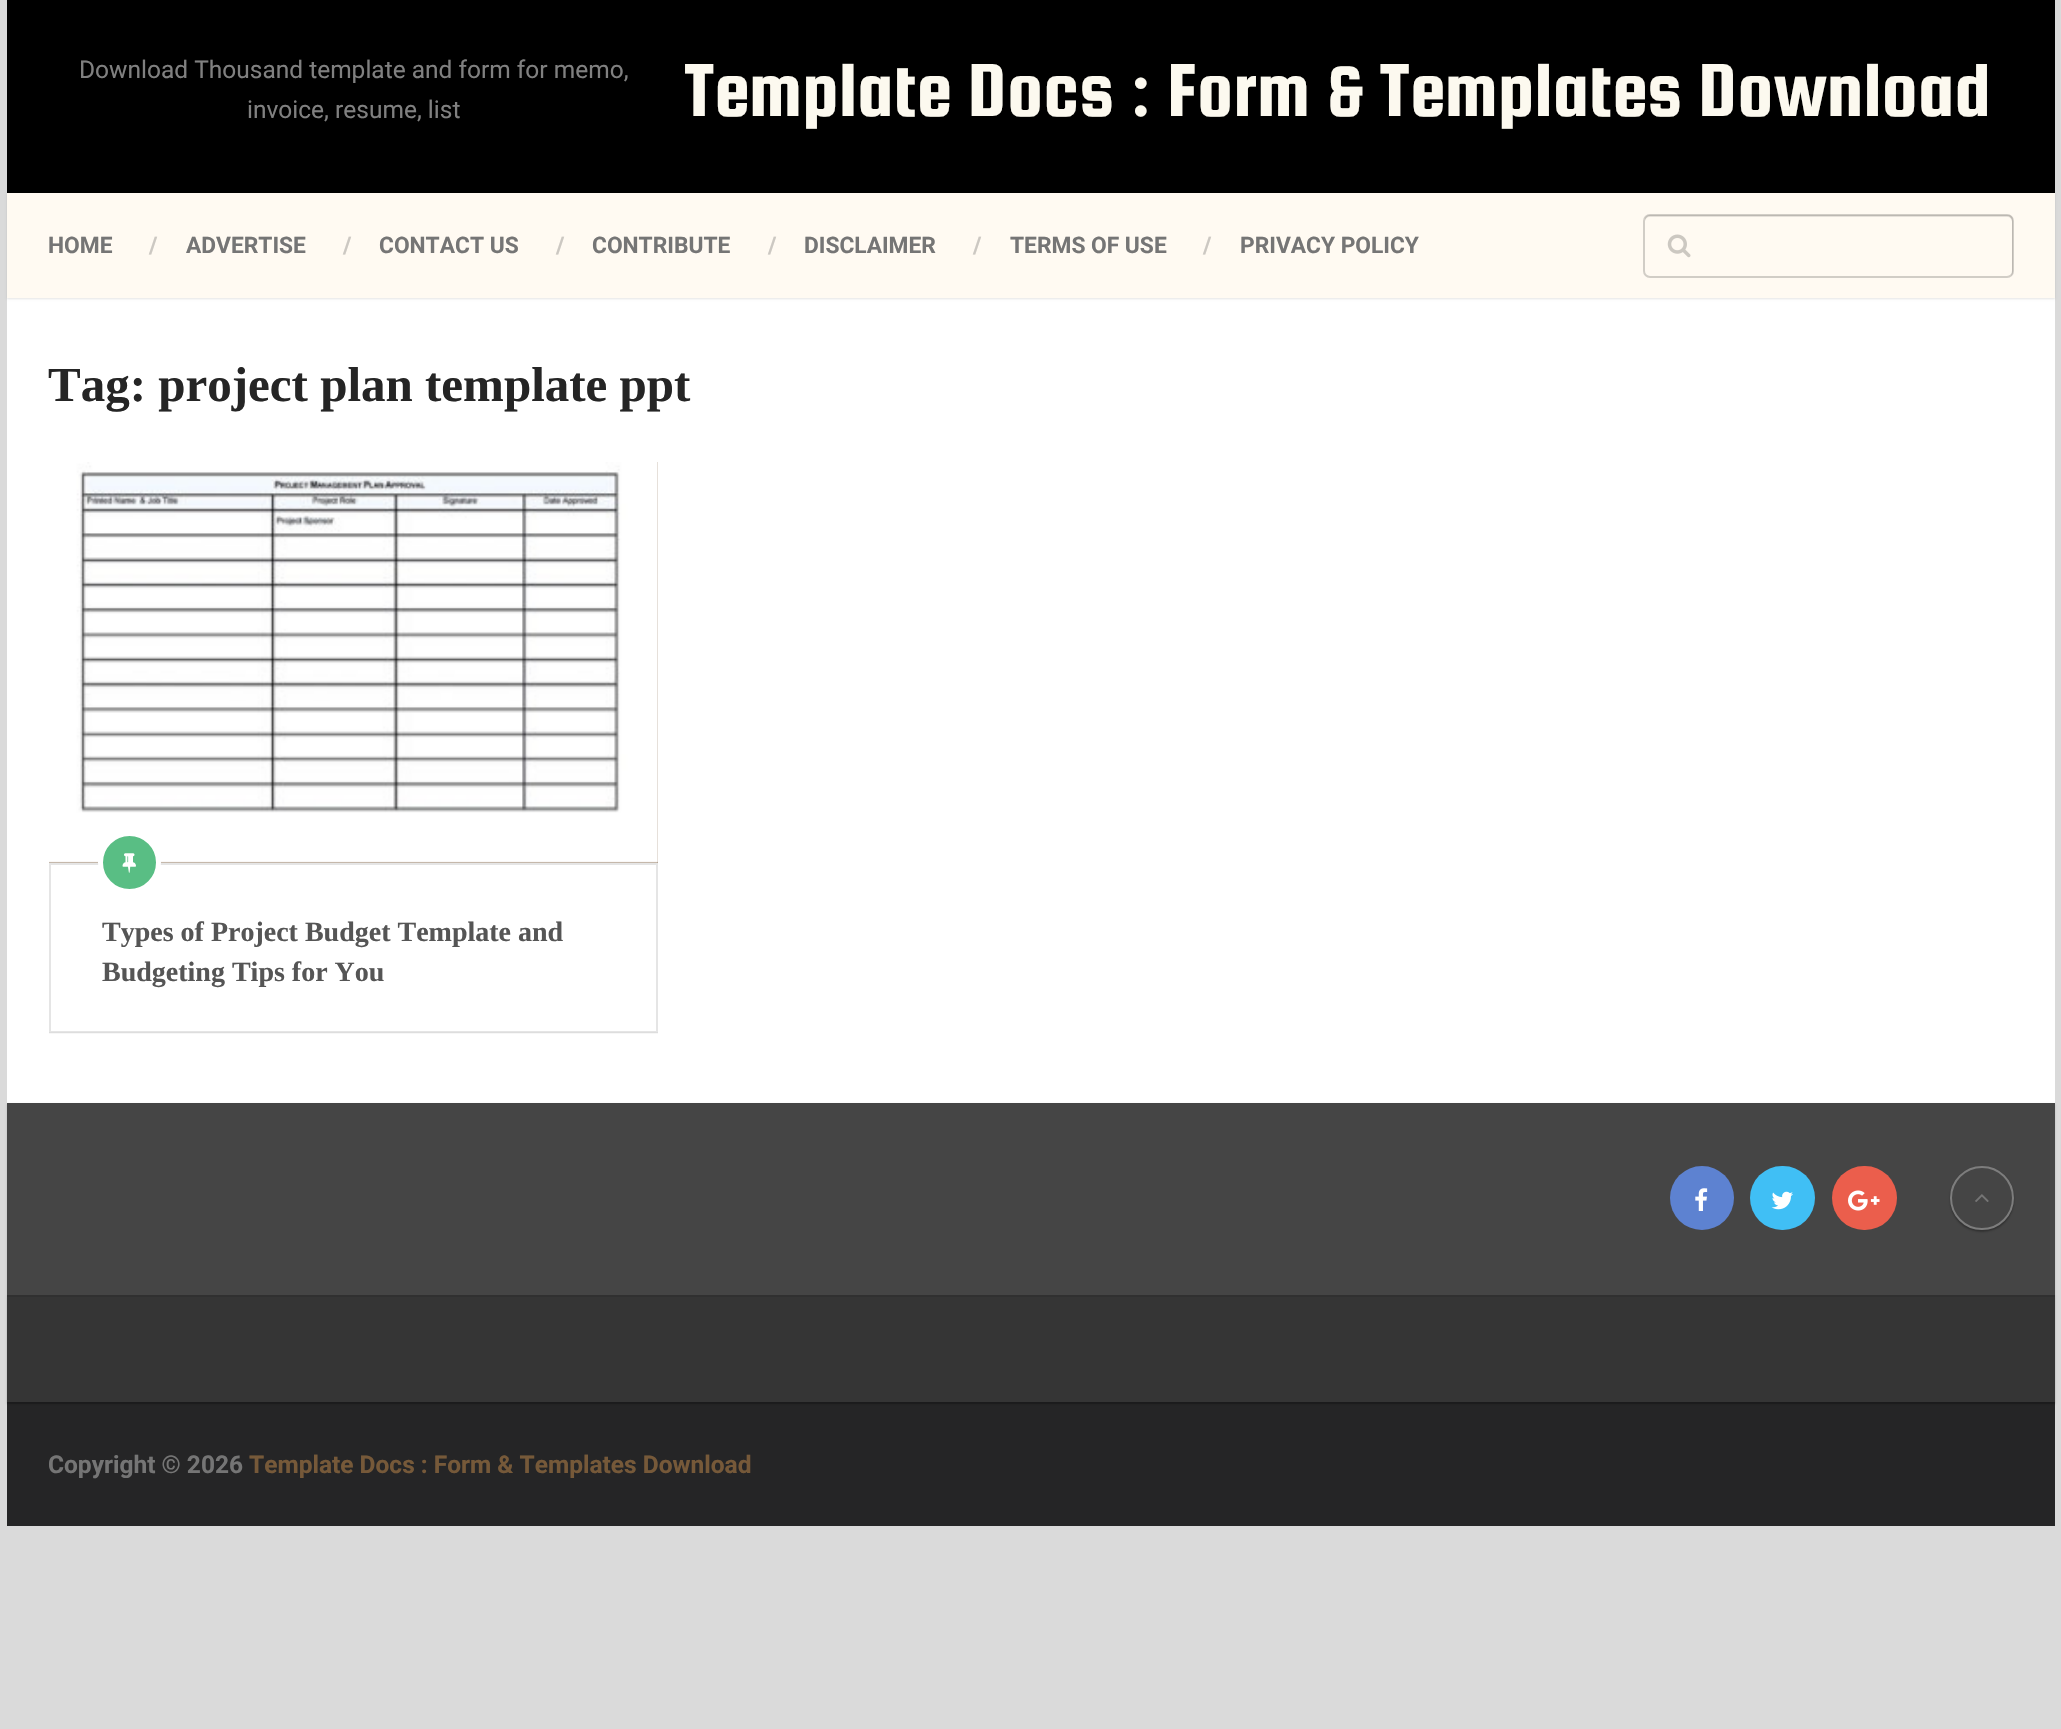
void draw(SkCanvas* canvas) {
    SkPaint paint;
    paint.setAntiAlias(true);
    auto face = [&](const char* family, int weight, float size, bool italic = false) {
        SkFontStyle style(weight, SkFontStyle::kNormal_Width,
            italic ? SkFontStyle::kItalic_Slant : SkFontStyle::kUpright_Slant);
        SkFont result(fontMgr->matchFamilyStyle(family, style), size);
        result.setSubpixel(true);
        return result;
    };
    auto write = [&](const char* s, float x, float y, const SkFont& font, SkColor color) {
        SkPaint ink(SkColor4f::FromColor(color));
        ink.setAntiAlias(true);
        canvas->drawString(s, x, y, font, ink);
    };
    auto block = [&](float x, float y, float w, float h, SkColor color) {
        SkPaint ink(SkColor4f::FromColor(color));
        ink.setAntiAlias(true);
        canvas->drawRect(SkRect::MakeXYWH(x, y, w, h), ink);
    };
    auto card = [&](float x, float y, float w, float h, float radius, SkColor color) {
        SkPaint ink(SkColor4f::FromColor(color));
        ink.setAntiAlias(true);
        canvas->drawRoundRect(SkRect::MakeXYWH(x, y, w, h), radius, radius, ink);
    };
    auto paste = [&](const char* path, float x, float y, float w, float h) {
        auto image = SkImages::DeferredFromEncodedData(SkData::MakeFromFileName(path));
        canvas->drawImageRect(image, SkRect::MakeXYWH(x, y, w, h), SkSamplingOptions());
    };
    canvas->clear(SkColorSetRGB(218, 218, 218));
    block(7, 0, 2048, 193, SK_ColorBLACK);
    auto kFont1 = face("Roboto", 400, 24.5f);
    write("Download Thousand template and form for memo,", 79, 78, kFont1, SkColorSetRGB(128, 128, 128));
    write("invoice, resume, list", 247, 118, kFont1, SkColorSetRGB(128, 128, 128));
    auto kFont2 = face("Squada One", 400, 80.5f);
    write("Template Docs : Form & Templates Download", 684, 116, kFont2, SkColorSetRGB(252, 249, 239));
    block(7, 298, 2048, 805, SK_ColorWHITE);
    paint.setColor(SkColorSetARGB(26, 0, 0, 0));
    paint.setMaskFilter(SkMaskFilter::MakeBlur(kNormal_SkBlurStyle, 1));
    canvas->drawRect(SkRect::MakeXYWH(7, 194, 2048, 105), paint);
    paint.setMaskFilter(nullptr);
    block(7, 193, 2048, 105, SkColorSetRGB(255, 250, 242));
    auto kFont3 = face("Roboto", 700, 22.75f);
    write("HOME", 48, 253, kFont3, SkColorSetRGB(117, 117, 117));
    write("/", 149, 253, kFont3, SkColorSetRGB(204, 200, 194));
    write("ADVERTISE", 186, 253, kFont3, SkColorSetRGB(117, 117, 117));
    write("/", 343, 253, kFont3, SkColorSetRGB(204, 200, 194));
    write("CONTACT US", 379, 253, kFont3, SkColorSetRGB(117, 117, 117));
    write("/", 556, 253, kFont3, SkColorSetRGB(204, 200, 194));
    write("CONTRIBUTE", 592, 253, kFont3, SkColorSetRGB(117, 117, 117));
    write("/", 768, 253, kFont3, SkColorSetRGB(204, 200, 194));
    write("DISCLAIMER", 804, 253, kFont3, SkColorSetRGB(117, 117, 117));
    write("/", 973, 253, kFont3, SkColorSetRGB(204, 200, 194));
    write("TERMS OF USE", 1010, 253, kFont3, SkColorSetRGB(117, 117, 117));
    write("/", 1203, 253, kFont3, SkColorSetRGB(204, 200, 194));
    write("PRIVACY POLICY", 1240, 253, kFont3, SkColorSetRGB(117, 117, 117));
    paint.setColor(SkColorSetRGB(230, 225, 218));
    canvas->drawPath(SkPathBuilder().moveTo(1650, 217).lineTo(2007, 217).cubicTo(2010, 217, 2012, 219, 2012, 222).lineTo(2012, 273).lineTo(2011, 276).cubicTo(2012, 275, 2013, 273, 2013, 272).lineTo(2013, 220).cubicTo(2013, 217, 2011, 215, 2008, 215).lineTo(1650, 215).cubicTo(1647, 215, 1645, 217, 1645, 220).lineTo(1645, 222).cubicTo(1645, 219, 1647, 217, 1650, 217).close().detach(), paint);
    paint.setStyle(SkPaint::kStroke_Style);
    paint.setStrokeWidth(2);
    paint.setColor(SkColorSetARGB(46, 0, 0, 0));
    canvas->drawRoundRect(SkRect::MakeXYWH(1644, 215, 369, 62), 6, 6, paint);
    paste("pic1.png", 1667, 234, 24, 24);
    auto kFont4 = face("Liberation Serif", 700, 49);
    write("Tag: project plan template ppt", 48, 401, kFont4, SkColorSetRGB(37, 37, 37));
    block(49, 1032, 609, 2, SkColorSetRGB(247, 247, 247));
    block(49, 462, 609, 401, SkColorSetRGB(118, 89, 57));
    paste("pic2.png", 49, 462, 609, 401);
    paint.setColor(SkColorSetARGB(26, 0, 0, 0));
    canvas->drawRect(SkRect::MakeXYWH(50, 864, 607, 168), paint);
    paint.setStyle(SkPaint::kFill_Style);
    paint.setColor(SkColorSetRGB(89, 190, 132));
    canvas->drawCircle(129.5f, 862.5f, 29, paint);
    paint.setStyle(SkPaint::kStroke_Style);
    paint.setStrokeWidth(5);
    paint.setColor(SK_ColorWHITE);
    canvas->drawCircle(129.5f, 862.5f, 29, paint);
    paste("pic3.png", 122, 853, 14, 20);
    auto kFont5 = face("Liberation Serif", 700, 28);
    write("Types of Project Budget Template and", 102, 941, kFont5, SkColorSetRGB(85, 85, 85));
    write("Budgeting Tips for You", 102, 981, kFont5, SkColorSetRGB(85, 85, 85));
    paint.setStyle(SkPaint::kFill_Style);
    paint.setColor(SkColorSetARGB(38, 0, 0, 0));
    paint.setMaskFilter(SkMaskFilter::MakeBlur(kNormal_SkBlurStyle, 1));
    canvas->drawRect(SkRect::MakeXYWH(7, 1104, 2048, 193), paint);
    paint.setMaskFilter(nullptr);
    block(7, 1103, 2048, 192, SkColorSetRGB(69, 69, 69));
    paint.setColor(SkColorSetRGB(93, 130, 209));
    canvas->drawCircle(1702, 1198, 32, paint);
    paste("pic4.png", 1695, 1188, 13, 23);
    card(1750, 1166, 65, 64, 32, SkColorSetRGB(64, 191, 245));
    paste("pic5.png", 1771, 1191, 22, 19);
    card(1832, 1166, 65, 64, 32, SkColorSetRGB(235, 94, 76));
    paste("pic6.png", 1848, 1190, 32, 21);
    paint.setColor(SkColorSetARGB(77, 0, 0, 0));
    paint.setMaskFilter(SkMaskFilter::MakeBlur(kNormal_SkBlurStyle, 1));
    canvas->drawRoundRect(SkRect::MakeXYWH(1950, 1167, 64, 65), 32, 32, paint);
    paint.setMaskFilter(nullptr);
    paint.setColor(SkColorSetRGB(69, 69, 69));
    canvas->drawCircle(1982, 1198, 31, paint);
    paint.setStyle(SkPaint::kStroke_Style);
    paint.setStrokeWidth(2);
    paint.setColor(SkColorSetRGB(125, 125, 125));
    canvas->drawCircle(1982, 1198, 31, paint);
    paste("pic7.png", 1975, 1194, 14, 8);
    block(7, 1404, 2048, 122, SkColorSetRGB(37, 37, 38));
    block(7, 1402, 2048, 2, SkColorSetRGB(33, 33, 34));
    paint.setStyle(SkPaint::kFill_Style);
    paint.setColor(SkColorSetARGB(51, 0, 0, 0));
    paint.setMaskFilter(SkMaskFilter::MakeBlur(kNormal_SkBlurStyle, 1));
    canvas->drawRect(SkRect::MakeXYWH(7, 1297, 2048, 107), paint);
    paint.setMaskFilter(nullptr);
    block(7, 1297, 2048, 105, SkColorSetRGB(53, 53, 53));
    block(7, 1295, 2048, 2, SkColorSetRGB(48, 48, 48));
    auto kFont6 = face("Roboto", 700, 24.5f);
    write("Copyright © 2026", 48, 1473, kFont6, SkColorSetRGB(117, 117, 117));
    write("Template Docs : Form & Templates Download", 249, 1473, kFont6, SkColorSetRGB(118, 89, 57));
}
